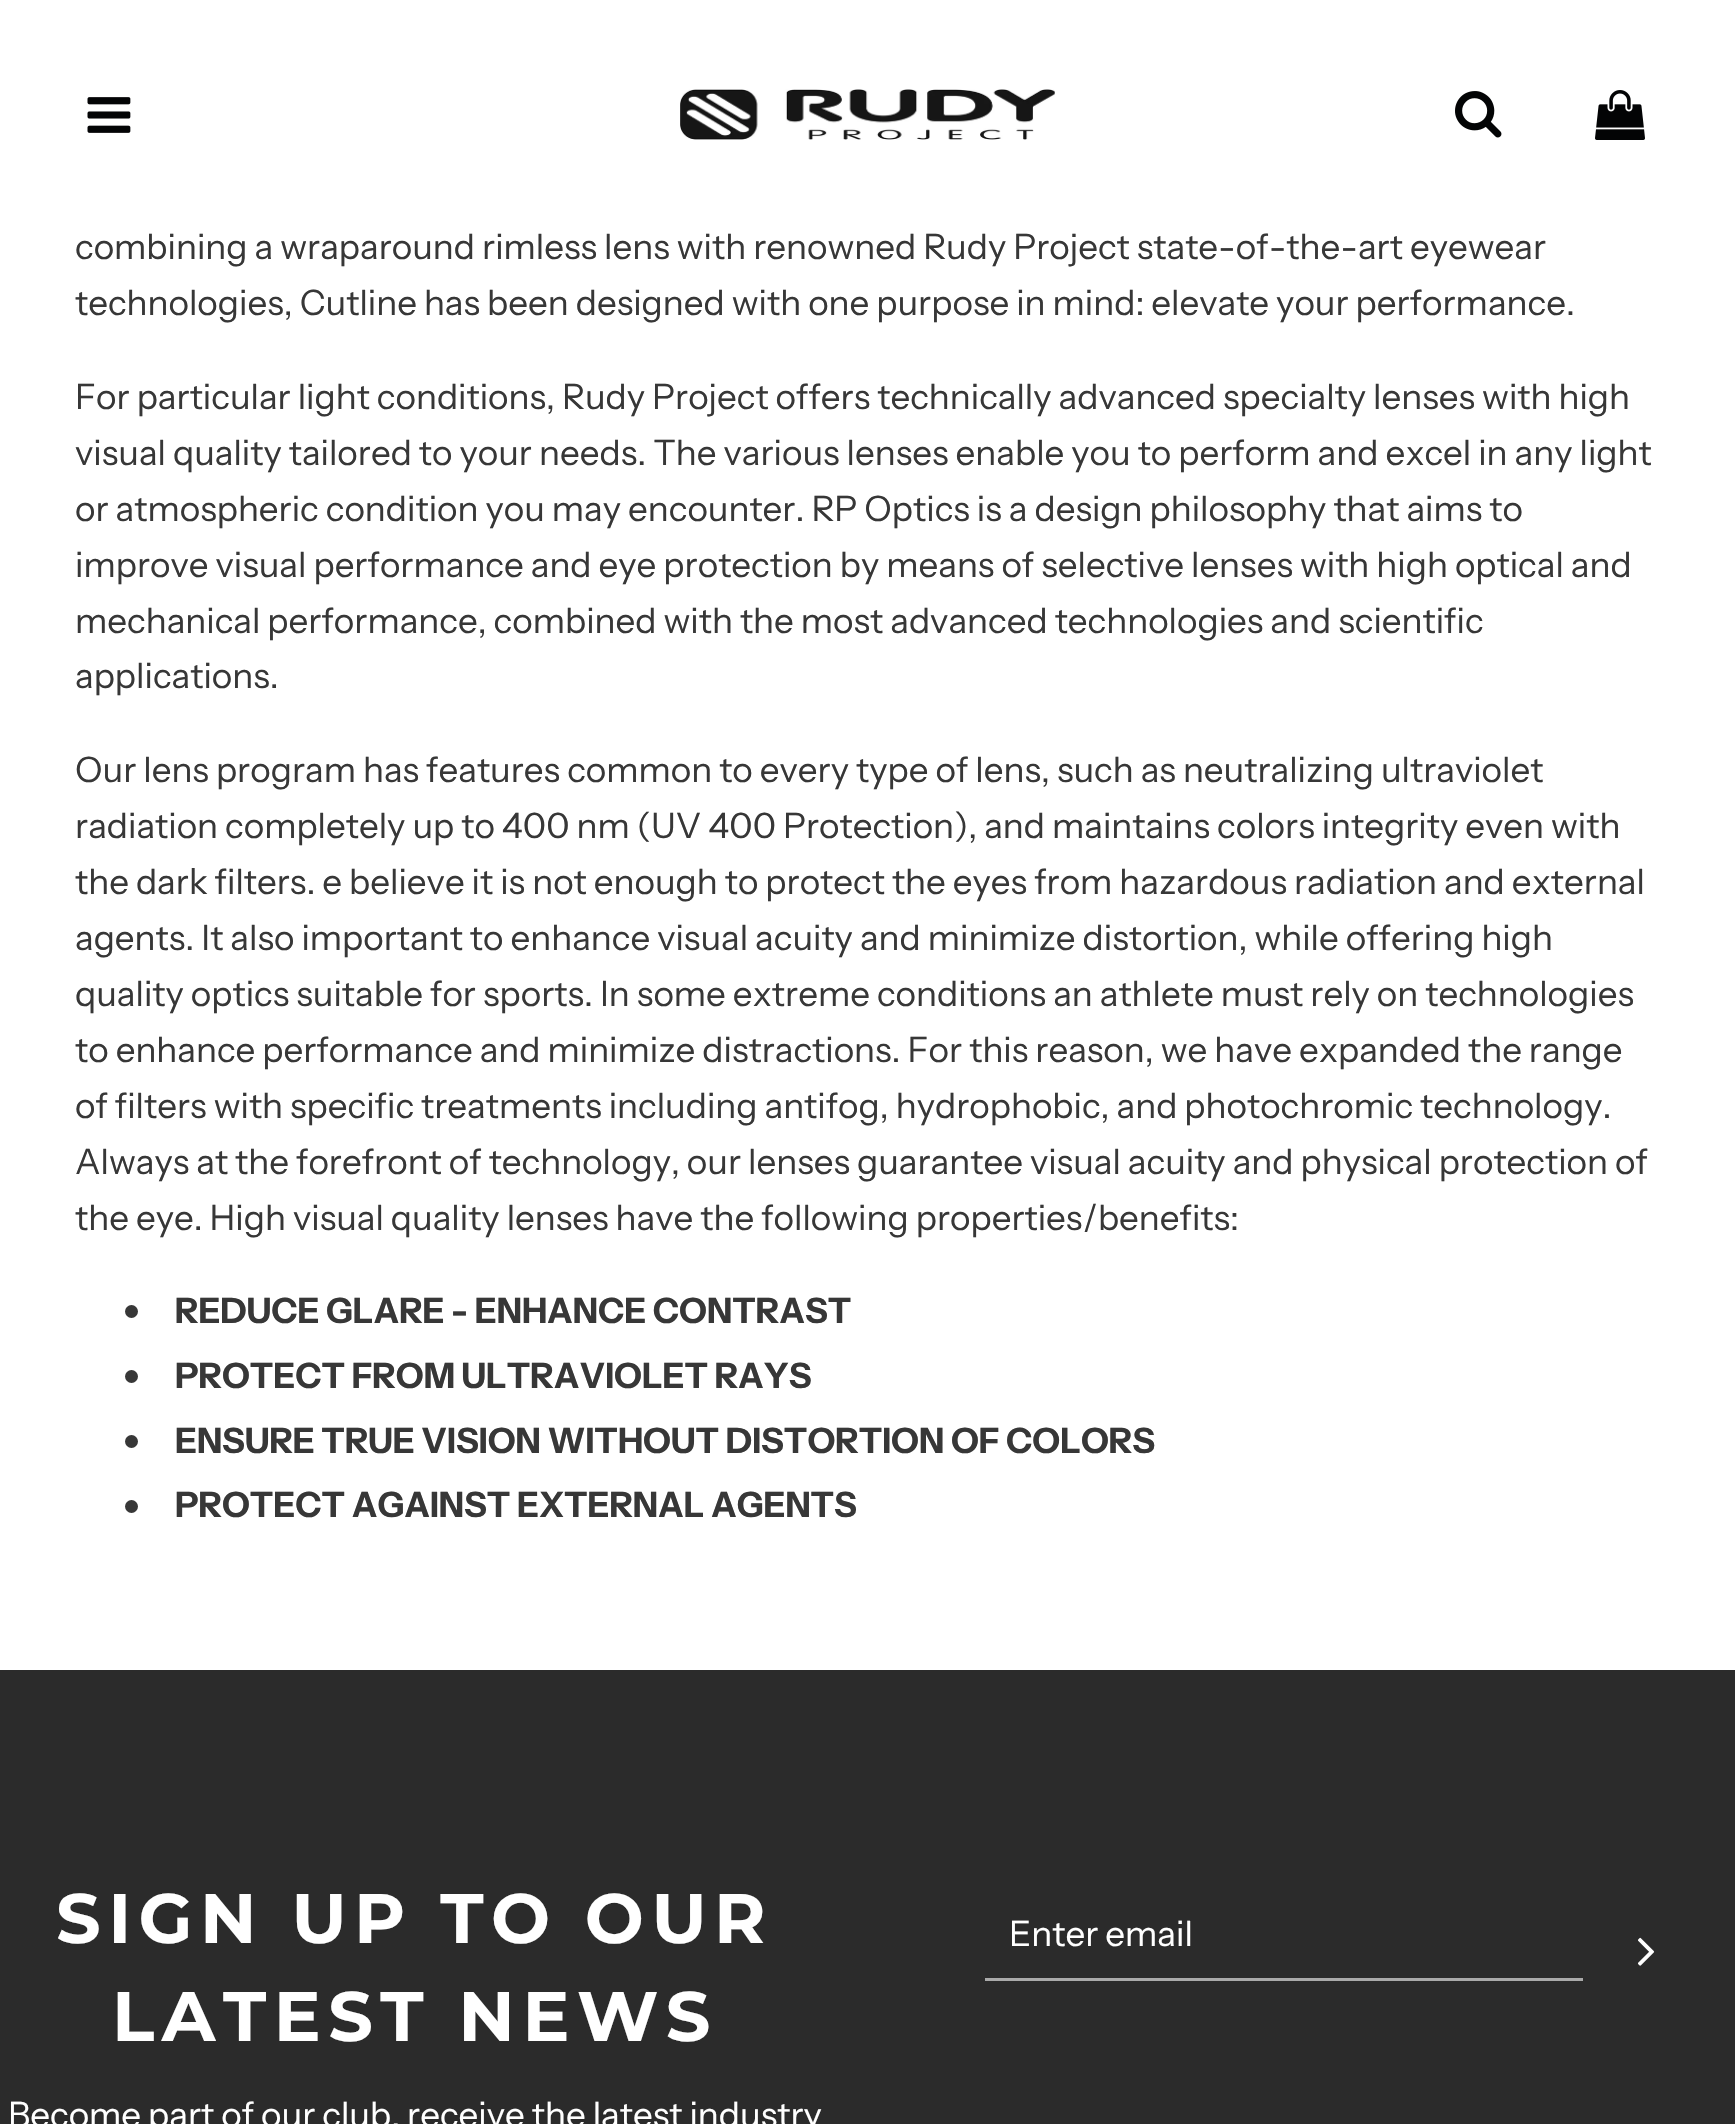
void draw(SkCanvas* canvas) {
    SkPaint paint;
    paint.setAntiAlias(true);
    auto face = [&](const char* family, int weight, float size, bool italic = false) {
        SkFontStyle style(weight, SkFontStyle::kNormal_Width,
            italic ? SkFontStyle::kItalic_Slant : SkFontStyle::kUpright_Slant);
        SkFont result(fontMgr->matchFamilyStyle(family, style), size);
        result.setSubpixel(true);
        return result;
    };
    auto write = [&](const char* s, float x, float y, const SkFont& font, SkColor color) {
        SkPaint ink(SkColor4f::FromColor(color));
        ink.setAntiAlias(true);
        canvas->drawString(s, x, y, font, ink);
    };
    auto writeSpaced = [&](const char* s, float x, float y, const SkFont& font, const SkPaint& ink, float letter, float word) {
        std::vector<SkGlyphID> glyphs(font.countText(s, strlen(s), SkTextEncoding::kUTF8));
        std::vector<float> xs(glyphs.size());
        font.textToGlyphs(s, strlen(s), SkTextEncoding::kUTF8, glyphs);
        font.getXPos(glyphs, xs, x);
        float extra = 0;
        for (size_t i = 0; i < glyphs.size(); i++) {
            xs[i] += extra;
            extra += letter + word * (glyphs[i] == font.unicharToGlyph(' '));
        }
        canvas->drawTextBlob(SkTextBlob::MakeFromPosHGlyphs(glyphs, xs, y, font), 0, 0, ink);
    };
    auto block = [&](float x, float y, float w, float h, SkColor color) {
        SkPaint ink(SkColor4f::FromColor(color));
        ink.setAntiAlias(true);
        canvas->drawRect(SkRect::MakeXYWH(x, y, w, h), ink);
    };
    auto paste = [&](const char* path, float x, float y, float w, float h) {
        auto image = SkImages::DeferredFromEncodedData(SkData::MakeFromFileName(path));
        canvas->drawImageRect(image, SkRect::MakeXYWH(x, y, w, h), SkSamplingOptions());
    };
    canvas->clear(SK_ColorWHITE);
    paste("pic1.png", 87, 97, 44, 36);
    paste("pic2.png", 680, 89, 375, 51);
    paste("pic3.png", 1455, 91, 47, 47);
    paste("pic4.png", 1595, 90, 50, 50);
    auto kFont1 = face("Instrument Sans", 400, 35);
    write("combining a wraparound rimless lens with renowned Rudy Project state-of-the-art eyewear", 75, 259, kFont1, SkColorSetRGB(55, 55, 55));
    write("technologies, Cutline has been designed with one purpose in mind: elevate your performance.", 75, 315, kFont1, SkColorSetRGB(55, 55, 55));
    write("For particular light conditions, Rudy Project offers technically advanced specialty lenses with high", 75, 409, kFont1, SkColorSetRGB(55, 55, 55));
    write("visual quality tailored to your needs. The various lenses enable you to perform and excel in any light", 75, 465, kFont1, SkColorSetRGB(55, 55, 55));
    write("or atmospheric condition you may encounter. RP Optics is a design philosophy that aims to", 75, 521, kFont1, SkColorSetRGB(55, 55, 55));
    write("improve visual performance and eye protection by means of selective lenses with high optical and", 75, 577, kFont1, SkColorSetRGB(55, 55, 55));
    write("mechanical performance, combined with the most advanced technologies and scientific", 75, 633, kFont1, SkColorSetRGB(55, 55, 55));
    write("applications.", 75, 688, kFont1, SkColorSetRGB(55, 55, 55));
    write("Our lens program has features common to every type of lens, such as neutralizing ultraviolet", 75, 782, kFont1, SkColorSetRGB(55, 55, 55));
    write("radiation completely up to 400 nm (UV 400 Protection), and maintains colors integrity even with", 75, 838, kFont1, SkColorSetRGB(55, 55, 55));
    write("the dark filters. e believe it is not enough to protect the eyes from hazardous radiation and external", 75, 894, kFont1, SkColorSetRGB(55, 55, 55));
    write("agents. It also important to enhance visual acuity and minimize distortion, while offering high", 75, 950, kFont1, SkColorSetRGB(55, 55, 55));
    write("quality optics suitable for sports. In some extreme conditions an athlete must rely on technologies", 75, 1006, kFont1, SkColorSetRGB(55, 55, 55));
    write("to enhance performance and minimize distractions. For this reason, we have expanded the range", 75, 1062, kFont1, SkColorSetRGB(55, 55, 55));
    write("of filters with specific treatments including antifog, hydrophobic, and photochromic technology.", 75, 1118, kFont1, SkColorSetRGB(55, 55, 55));
    write("Always at the forefront of technology, our lenses guarantee visual acuity and physical protection of", 75, 1174, kFont1, SkColorSetRGB(55, 55, 55));
    write("the eye. High visual quality lenses have the following properties/benefits:", 75, 1230, kFont1, SkColorSetRGB(55, 55, 55));
    paint.setColor(SkColorSetRGB(55, 55, 55));
    canvas->drawCircle(131.5f, 1311.5f, 6.5f, paint);
    auto kFont2 = face("Instrument Sans", 700, 35);
    write("REDUCE GLARE - ENHANCE CONTRAST", 175, 1323, kFont2, SkColorSetRGB(55, 55, 55));
    canvas->drawCircle(131.5f, 1376.5f, 6.5f, paint);
    write("PROTECT FROM ULTRAVIOLET RAYS", 175, 1388, kFont2, SkColorSetRGB(55, 55, 55));
    canvas->drawCircle(131.5f, 1441.5f, 6.5f, paint);
    write("ENSURE TRUE VISION WITHOUT DISTORTION OF COLORS", 175, 1453, kFont2, SkColorSetRGB(55, 55, 55));
    canvas->drawCircle(131.5f, 1506.5f, 6.5f, paint);
    write("PROTECT AGAINST EXTERNAL AGENTS", 175, 1517, kFont2, SkColorSetRGB(55, 55, 55));
    block(0, 1670, 1735, 454, SkColorSetRGB(43, 43, 43));
    auto kFont3 = face("Montserrat", 700, 70);
    paint.setColor(SK_ColorWHITE);
    writeSpaced("SIGN UP TO OUR", 56, 1943, kFont3, paint, 7.5f, 0);
    writeSpaced("LATEST NEWS", 112, 2041, kFont3, paint, 7.5f, 0);
    write("Become part of our club, receive the latest industry", 8, 2127, kFont1, SK_ColorWHITE);
    block(985, 1978, 598, 3, SkColorSetRGB(170, 170, 170));
    write("Enter email", 1009, 1946, kFont1, SK_ColorWHITE);
    paste("pic5.png", 1638, 1937, 17, 29);
}
